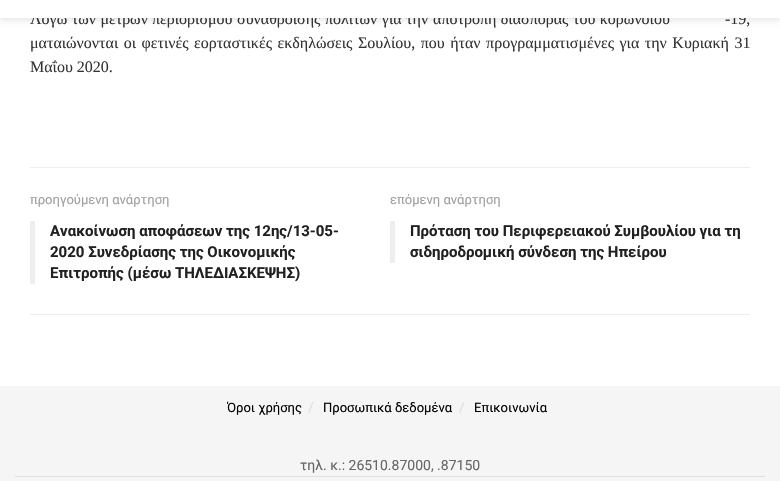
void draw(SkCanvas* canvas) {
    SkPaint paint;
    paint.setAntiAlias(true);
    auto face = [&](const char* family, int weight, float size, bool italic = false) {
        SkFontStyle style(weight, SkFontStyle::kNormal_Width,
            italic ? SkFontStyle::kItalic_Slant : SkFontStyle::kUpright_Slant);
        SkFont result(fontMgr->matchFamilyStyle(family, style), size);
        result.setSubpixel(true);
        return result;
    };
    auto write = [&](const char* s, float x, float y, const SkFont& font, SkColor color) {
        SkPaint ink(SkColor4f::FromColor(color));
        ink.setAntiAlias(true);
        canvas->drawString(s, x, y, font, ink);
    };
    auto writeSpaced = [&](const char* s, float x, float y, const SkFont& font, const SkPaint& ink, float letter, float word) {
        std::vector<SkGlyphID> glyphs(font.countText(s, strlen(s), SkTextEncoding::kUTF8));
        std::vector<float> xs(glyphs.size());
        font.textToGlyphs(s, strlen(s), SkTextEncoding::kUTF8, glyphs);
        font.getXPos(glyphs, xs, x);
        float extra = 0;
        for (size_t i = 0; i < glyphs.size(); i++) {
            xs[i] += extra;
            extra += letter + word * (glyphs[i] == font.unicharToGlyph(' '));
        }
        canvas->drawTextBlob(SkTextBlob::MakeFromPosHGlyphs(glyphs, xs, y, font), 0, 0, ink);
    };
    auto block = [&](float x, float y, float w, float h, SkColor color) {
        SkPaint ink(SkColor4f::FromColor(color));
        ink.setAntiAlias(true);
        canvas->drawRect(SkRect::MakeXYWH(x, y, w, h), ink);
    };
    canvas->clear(SK_ColorWHITE);
    paint.setColor(SkColorSetARGB(26, 0, 0, 0));
    paint.setMaskFilter(SkMaskFilter::MakeBlur(kNormal_SkBlurStyle, 3));
    canvas->drawRect(SkRect::MakeXYWH(0, -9, 780, 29), paint);
    paint.setMaskFilter(nullptr);
    auto kFont1 = face("Liberation Serif", 400, 16);
    paint.setColor(SkColorSetRGB(51, 51, 51));
    writeSpaced("Λόγω των μέτρων", 30, 24, kFont1, paint, 0, 0.5f);
    write("περιορισμού", 152, 24, kFont1, SkColorSetRGB(51, 51, 51));
    write("συνάθροισης", 237, 24, kFont1, SkColorSetRGB(51, 51, 51));
    writeSpaced("πολιτών για την", 325, 24, kFont1, paint, 0, 0.5f);
    writeSpaced("αποτροπή διασποράς του κορωνοϊού", 433, 24, kFont1, paint, 0, 0.5f);
    write("-19,", 725, 24, kFont1, SkColorSetRGB(51, 51, 51));
    block(0, 0, 780, 18, SK_ColorWHITE);
    writeSpaced("ματαιώνονται οι φετινές εορταστικές εκδηλώσεις Σουλίου, που ήταν προγραμματισμένες για την Κυριακή 31", 30, 48, kFont1, paint, 0, 1.5f);
    write("Μαΐου 2020.", 30, 72, kFont1, SkColorSetRGB(51, 51, 51));
    block(30, 167, 720, 1, SkColorSetRGB(238, 238, 238));
    block(30, 314, 720, 1, SkColorSetRGB(238, 238, 238));
    auto kFont2 = face("Roboto", 400, 13);
    write("προηγούμενη ανάρτηση", 30, 204, kFont2, SkColorSetRGB(160, 160, 160));
    block(30, 221, 5, 63, SkColorSetRGB(238, 238, 238));
    auto kFont3 = face("Roboto", 700, 15);
    write("Ανακοίνωση αποφάσεων της 12ης/13-05-", 50, 236, kFont3, SkColorSetRGB(33, 33, 33));
    write("2020 Συνεδρίασης της Οικονομικής", 50, 257, kFont3, SkColorSetRGB(33, 33, 33));
    write("Επιτροπής (μέσω ΤΗΛΕΔΙΑΣΚΕΨΗΣ)", 50, 278, kFont3, SkColorSetRGB(33, 33, 33));
    write("επόμενη ανάρτηση", 390, 204, kFont2, SkColorSetRGB(160, 160, 160));
    block(390, 221, 5, 42, SkColorSetRGB(238, 238, 238));
    write("Πρόταση του Περιφερειακού Συμβουλίου για τη", 410, 236, kFont3, SkColorSetRGB(33, 33, 33));
    write("σιδηροδρομική σύνδεση της Ηπείρου", 410, 257, kFont3, SkColorSetRGB(33, 33, 33));
    block(0, 386, 780, 95, SkColorSetRGB(245, 245, 245));
    write("Όροι χρήσης", 227, 412, kFont2, SK_ColorBLACK);
    auto kFont4 = face("Roboto", 400, 14);
    write("/", 308, 412, kFont4, SkColorSetRGB(224, 224, 224));
    write("Προσωπικά δεδομένα", 323, 412, kFont2, SK_ColorBLACK);
    write("/", 459, 412, kFont4, SkColorSetRGB(224, 224, 224));
    write("Επικοινωνία", 474, 412, kFont2, SK_ColorBLACK);
    write("τηλ. κ.: 26510.87000, .87150", 300, 470, kFont4, SkColorSetRGB(102, 102, 102));
    block(15, 476, 750, 1, SkColorSetRGB(224, 224, 224));
}
